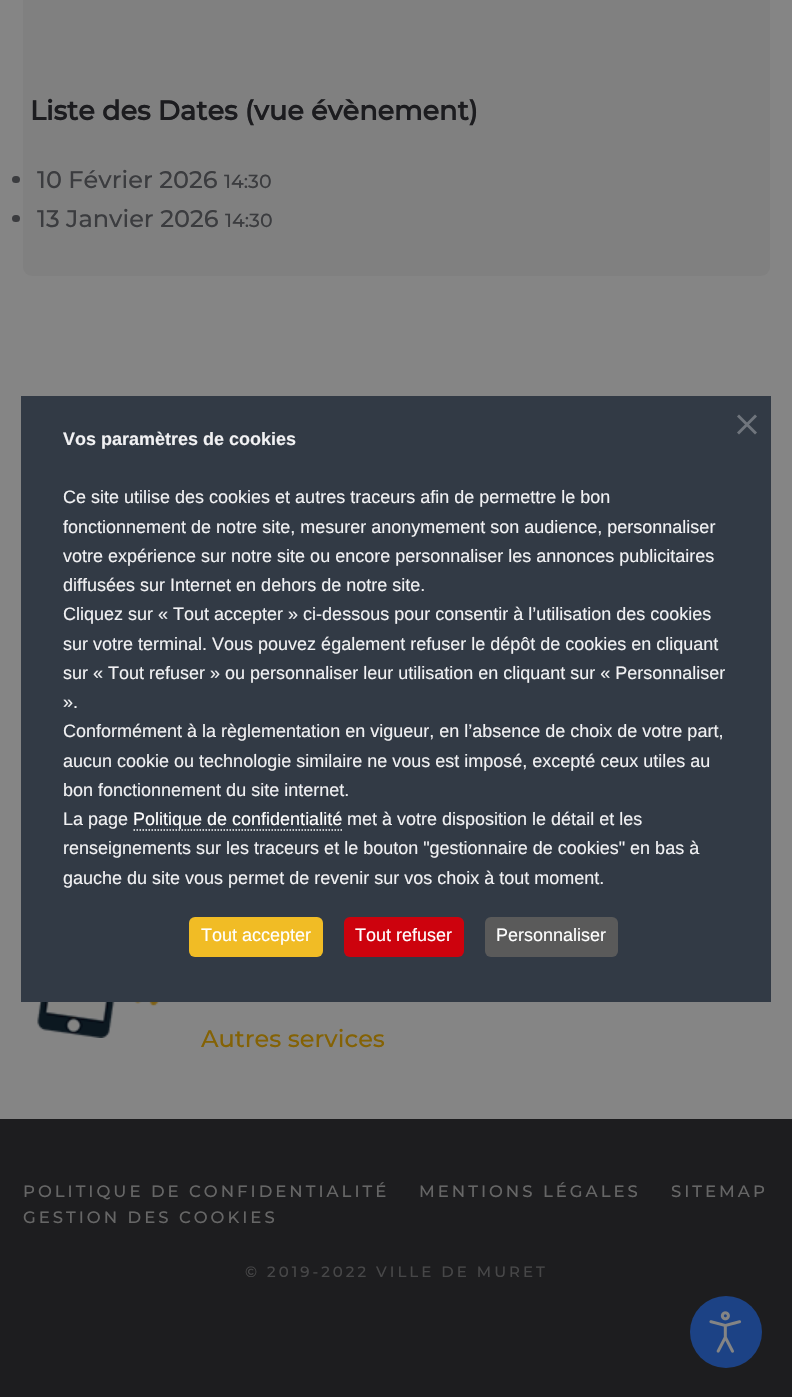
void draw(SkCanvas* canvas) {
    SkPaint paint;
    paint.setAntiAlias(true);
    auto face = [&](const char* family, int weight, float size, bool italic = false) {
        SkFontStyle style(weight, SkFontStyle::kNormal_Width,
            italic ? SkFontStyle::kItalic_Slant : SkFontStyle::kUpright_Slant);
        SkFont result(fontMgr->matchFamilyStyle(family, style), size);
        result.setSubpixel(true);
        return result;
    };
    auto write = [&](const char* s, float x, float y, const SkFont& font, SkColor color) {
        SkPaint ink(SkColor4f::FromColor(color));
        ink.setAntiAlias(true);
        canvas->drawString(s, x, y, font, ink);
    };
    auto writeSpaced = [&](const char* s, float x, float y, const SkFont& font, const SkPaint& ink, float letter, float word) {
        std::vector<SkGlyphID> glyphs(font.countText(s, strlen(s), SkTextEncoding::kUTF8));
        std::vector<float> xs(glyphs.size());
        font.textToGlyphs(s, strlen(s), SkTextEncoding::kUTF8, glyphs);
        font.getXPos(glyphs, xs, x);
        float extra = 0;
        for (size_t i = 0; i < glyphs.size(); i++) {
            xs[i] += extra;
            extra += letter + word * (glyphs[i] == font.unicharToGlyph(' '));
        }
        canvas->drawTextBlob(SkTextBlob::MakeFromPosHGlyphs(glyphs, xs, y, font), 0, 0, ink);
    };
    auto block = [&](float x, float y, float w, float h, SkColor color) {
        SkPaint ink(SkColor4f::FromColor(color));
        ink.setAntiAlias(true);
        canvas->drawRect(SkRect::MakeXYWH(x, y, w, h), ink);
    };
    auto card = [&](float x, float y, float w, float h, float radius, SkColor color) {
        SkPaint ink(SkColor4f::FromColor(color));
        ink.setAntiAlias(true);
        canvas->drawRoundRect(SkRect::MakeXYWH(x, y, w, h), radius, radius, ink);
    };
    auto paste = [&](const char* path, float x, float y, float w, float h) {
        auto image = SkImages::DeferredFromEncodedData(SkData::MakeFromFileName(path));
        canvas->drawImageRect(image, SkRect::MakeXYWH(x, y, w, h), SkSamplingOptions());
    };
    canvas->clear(SkColorSetRGB(133, 133, 133));
    card(23, -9, 747, 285, 9, SkColorSetRGB(128, 128, 128));
    auto kFont1 = face("Montserrat", 700, 27);
    write("Liste des Dates (vue évènement)", 30, 120, kFont1, SkColorSetRGB(28, 28, 31));
    card(12, 176, 8, 7, 3.5f, SkColorSetRGB(59, 60, 63));
    auto kFont2 = face("Montserrat", 100, 24);
    write("10 Février 2026", 37, 188, kFont2, SkColorSetRGB(59, 60, 63));
    auto kFont3 = face("Montserrat", 100, 19);
    write("14:30", 224, 188, kFont3, SkColorSetRGB(59, 60, 63));
    card(12, 215, 8, 7, 3.5f, SkColorSetRGB(59, 60, 63));
    write("13 Janvier 2026", 37, 227, kFont2, SkColorSetRGB(59, 60, 63));
    write("14:30", 225, 227, kFont3, SkColorSetRGB(59, 60, 63));
    paste("pic1.png", 37, 1002, 123, 36);
    write("Autres services", 201, 1047, kFont2, SkColorSetRGB(132, 98, 5));
    block(0, 1119, 792, 278, SkColorSetRGB(29, 29, 31));
    auto kFont4 = face("Montserrat", 100, 16.5f);
    paint.setColor(SkColorSetRGB(102, 102, 102));
    writeSpaced("POLITIQUE DE CONFIDENTIALITÉ", 23, 1197, kFont4, paint, 3, 0);
    writeSpaced("MENTIONS LÉGALES", 419, 1197, kFont4, paint, 3, 0);
    writeSpaced("SITEMAP", 671, 1197, kFont4, paint, 3, 0);
    writeSpaced("GESTION DES COOKIES", 23, 1223, kFont4, paint, 3, 0);
    auto kFont5 = face("Montserrat", 100, 15);
    paint.setColor(SkColorSetRGB(71, 71, 72));
    writeSpaced("© 2019-2022 VILLE DE MURET", 245, 1277, kFont5, paint, 3, 0);
    block(21, 396, 750, 606, SkColorSetRGB(50, 58, 69));
    paint.setColor(SkColorSetRGB(112, 117, 125));
    canvas->drawPath(SkPathBuilder().moveTo(755, 414.5f).lineTo(757, 416.5f).lineTo(739, 434.5f).lineTo(737, 432.5f).close().detach(), paint);
    canvas->drawPath(SkPathBuilder().moveTo(737, 416.5f).lineTo(739, 414.5f).lineTo(757, 432.5f).lineTo(755, 434.5f).close().detach(), paint);
    auto kFont6 = face("Liberation Sans", 700, 18);
    write("Vos paramètres de cookies", 63, 445, kFont6, SkColorSetRGB(241, 241, 243));
    auto kFont7 = face("Liberation Sans", 400, 18);
    write("Ce site utilise des cookies et autres traceurs afin de permettre le bon", 63, 503, kFont7, SkColorSetRGB(241, 241, 243));
    write("fonctionnement de notre site, mesurer anonymement son audience, personnaliser", 63, 533, kFont7, SkColorSetRGB(241, 241, 243));
    write("votre expérience sur notre site ou encore personnaliser les annonces publicitaires", 63, 562, kFont7, SkColorSetRGB(241, 241, 243));
    write("diffusées sur Internet en dehors de notre site.", 63, 591, kFont7, SkColorSetRGB(241, 241, 243));
    write("Cliquez sur « Tout accepter » ci-dessous pour consentir à l’utilisation des cookies", 63, 620, kFont7, SkColorSetRGB(241, 241, 243));
    write("sur votre terminal. Vous pouvez également refuser le dépôt de cookies en cliquant", 63, 650, kFont7, SkColorSetRGB(241, 241, 243));
    write("sur « Tout refuser » ou personnaliser leur utilisation en cliquant sur « Personnaliser", 63, 679, kFont7, SkColorSetRGB(241, 241, 243));
    write("».", 63, 708, kFont7, SkColorSetRGB(241, 241, 243));
    write("Conformément à la règlementation en vigueur, en l’absence de choix de votre part,", 63, 737, kFont7, SkColorSetRGB(241, 241, 243));
    write("aucun cookie ou technologie similaire ne vous est imposé, excepté ceux utiles au", 63, 767, kFont7, SkColorSetRGB(241, 241, 243));
    write("bon fonctionnement du site internet.", 63, 796, kFont7, SkColorSetRGB(241, 241, 243));
    write("La page", 63, 825, kFont7, SkColorSetRGB(241, 241, 243));
    write("Politique de confidentialité", 133, 825, kFont7, SK_ColorWHITE);
    paint.setStyle(SkPaint::kStroke_Style);
    paint.setStrokeWidth(1.5f);
    paint.setColor(SK_ColorWHITE);
    paint.setPathEffect(SkDashPathEffect::Make({{1.5f, 1.5f}}, 0));
    canvas->drawPath(SkPathBuilder().moveTo(133.5f, 830).lineTo(342, 830).detach(), paint);
    paint.setPathEffect(nullptr);
    write("met à votre disposition le détail et les", 347, 825, kFont7, SkColorSetRGB(241, 241, 243));
    write("renseignements sur les traceurs et le bouton \"gestionnaire de cookies\" en bas à", 63, 854, kFont7, SkColorSetRGB(241, 241, 243));
    write("gauche du site vous permet de revenir sur vos choix à tout moment.", 63, 884, kFont7, SkColorSetRGB(241, 241, 243));
    card(189, 917, 134, 40, 6, SkColorSetRGB(241, 188, 37));
    write("Tout accepter", 201, 941, kFont7, SK_ColorWHITE);
    card(344, 917, 120, 40, 6, SkColorSetRGB(205, 2, 13));
    write("Tout refuser", 355, 941, kFont7, SK_ColorWHITE);
    card(485, 917, 133, 40, 6, SkColorSetRGB(90, 90, 90));
    write("Personnaliser", 496, 941, kFont7, SK_ColorWHITE);
    paint.setStyle(SkPaint::kFill_Style);
    paint.setColor(SkColorSetRGB(28, 66, 133));
    canvas->drawCircle(726, 1332, 36, paint);
    paste("pic2.png", 709, 1311, 33, 42);
}
